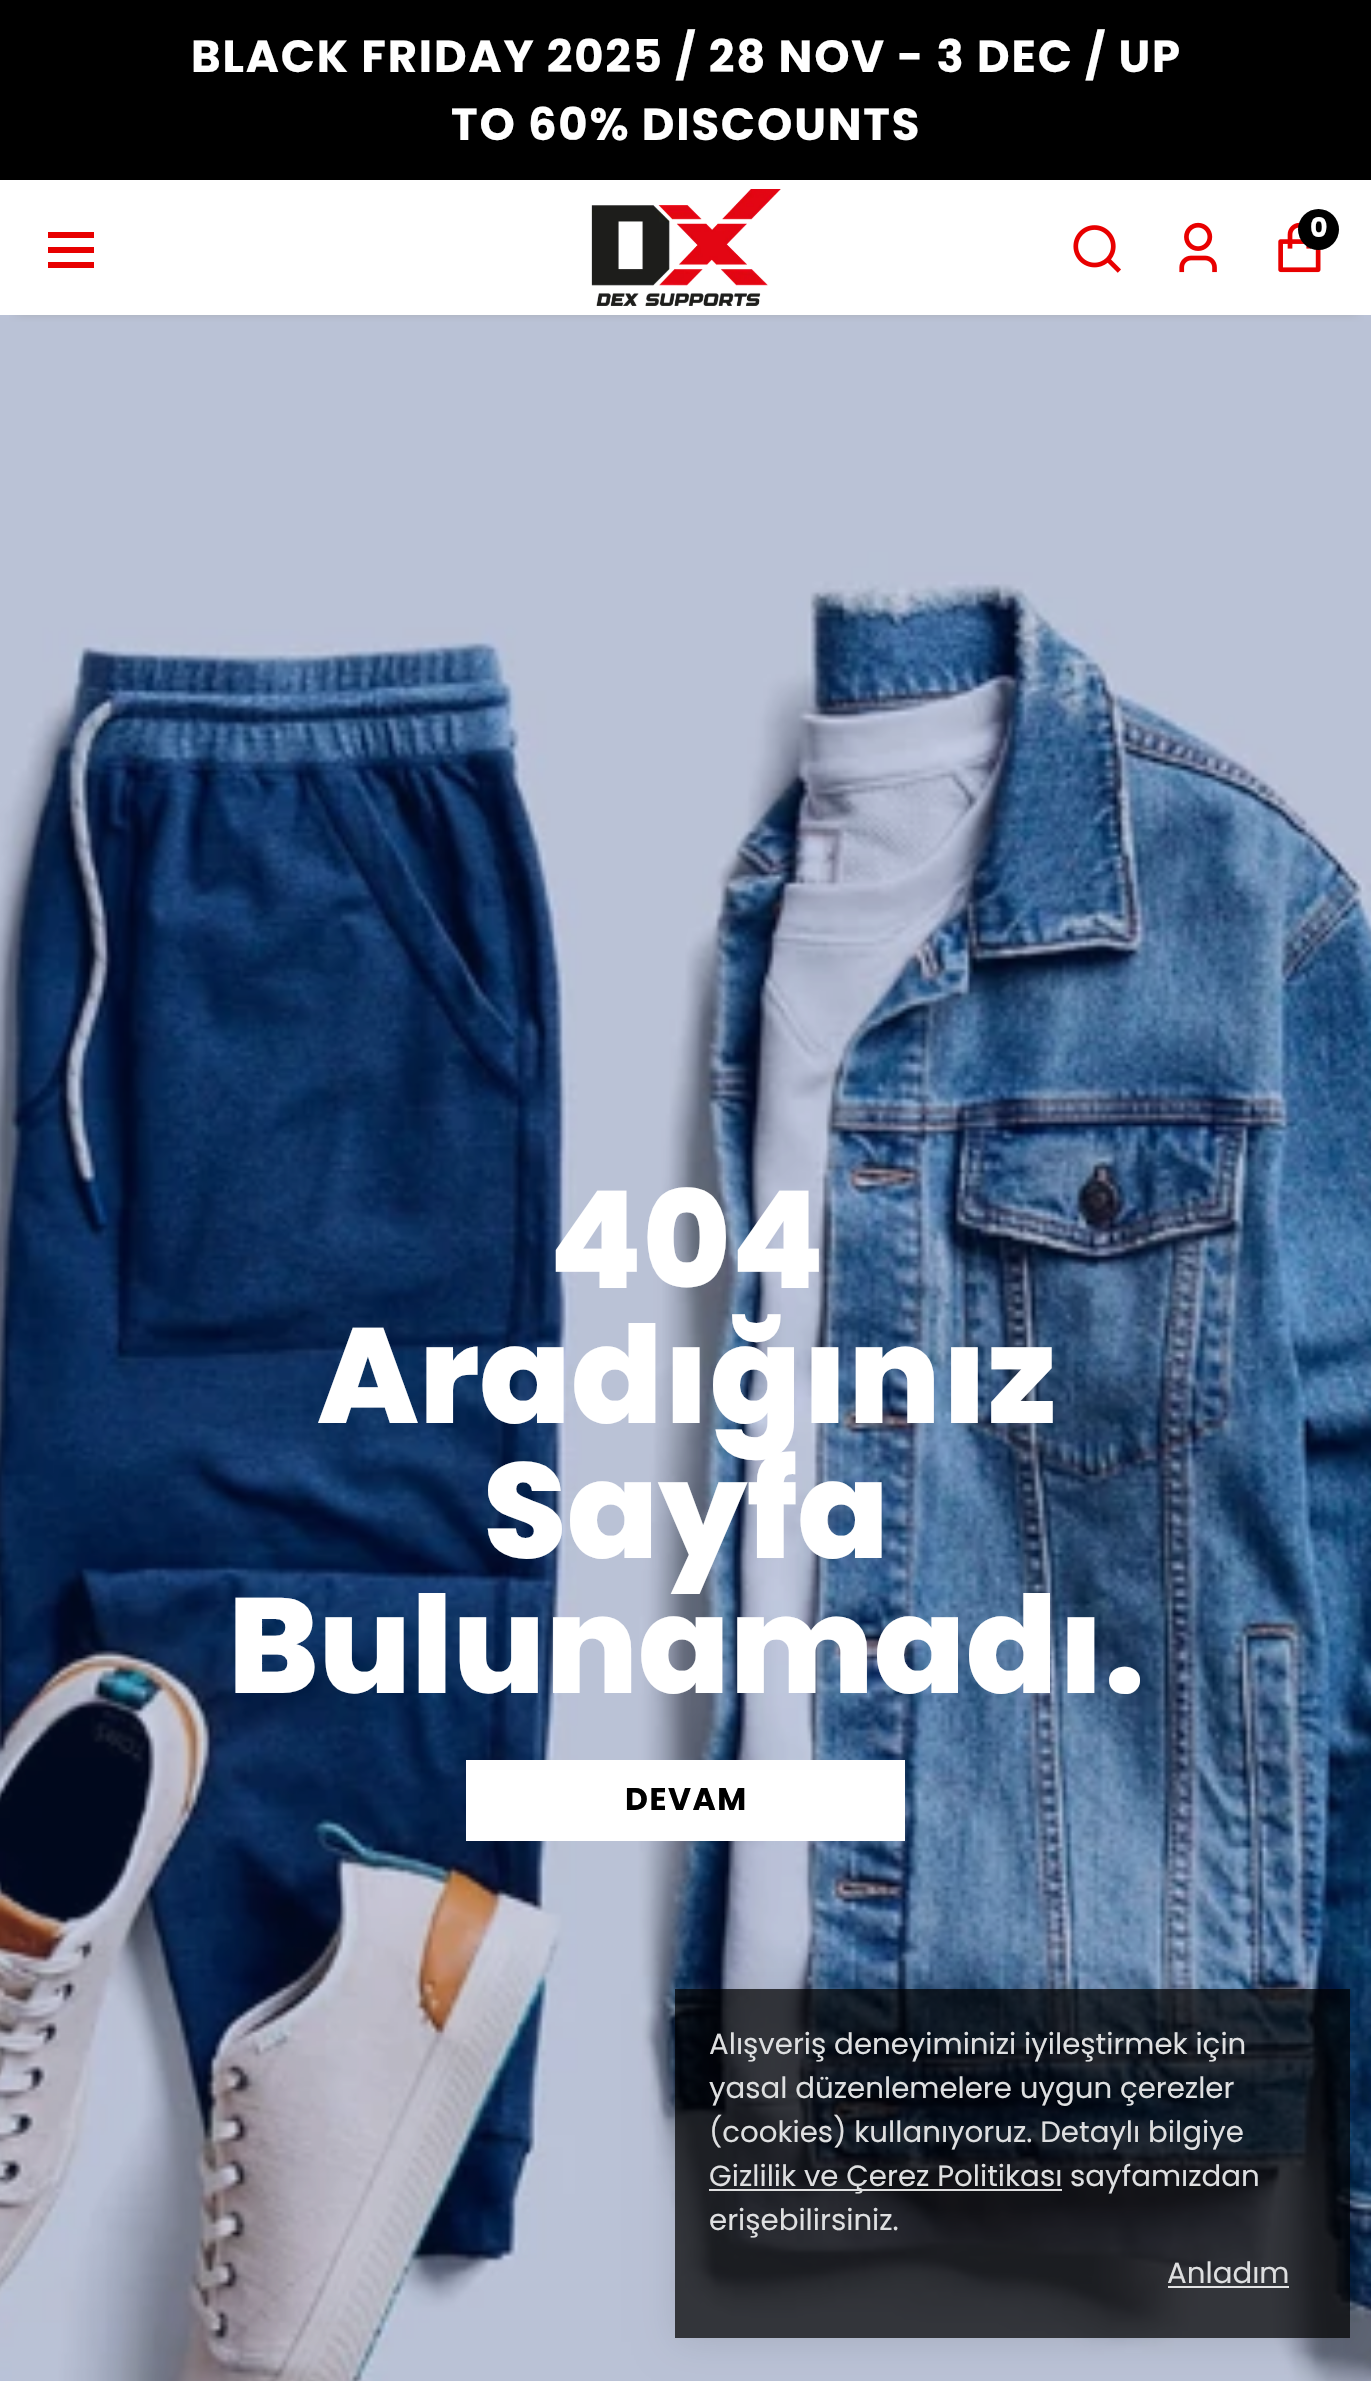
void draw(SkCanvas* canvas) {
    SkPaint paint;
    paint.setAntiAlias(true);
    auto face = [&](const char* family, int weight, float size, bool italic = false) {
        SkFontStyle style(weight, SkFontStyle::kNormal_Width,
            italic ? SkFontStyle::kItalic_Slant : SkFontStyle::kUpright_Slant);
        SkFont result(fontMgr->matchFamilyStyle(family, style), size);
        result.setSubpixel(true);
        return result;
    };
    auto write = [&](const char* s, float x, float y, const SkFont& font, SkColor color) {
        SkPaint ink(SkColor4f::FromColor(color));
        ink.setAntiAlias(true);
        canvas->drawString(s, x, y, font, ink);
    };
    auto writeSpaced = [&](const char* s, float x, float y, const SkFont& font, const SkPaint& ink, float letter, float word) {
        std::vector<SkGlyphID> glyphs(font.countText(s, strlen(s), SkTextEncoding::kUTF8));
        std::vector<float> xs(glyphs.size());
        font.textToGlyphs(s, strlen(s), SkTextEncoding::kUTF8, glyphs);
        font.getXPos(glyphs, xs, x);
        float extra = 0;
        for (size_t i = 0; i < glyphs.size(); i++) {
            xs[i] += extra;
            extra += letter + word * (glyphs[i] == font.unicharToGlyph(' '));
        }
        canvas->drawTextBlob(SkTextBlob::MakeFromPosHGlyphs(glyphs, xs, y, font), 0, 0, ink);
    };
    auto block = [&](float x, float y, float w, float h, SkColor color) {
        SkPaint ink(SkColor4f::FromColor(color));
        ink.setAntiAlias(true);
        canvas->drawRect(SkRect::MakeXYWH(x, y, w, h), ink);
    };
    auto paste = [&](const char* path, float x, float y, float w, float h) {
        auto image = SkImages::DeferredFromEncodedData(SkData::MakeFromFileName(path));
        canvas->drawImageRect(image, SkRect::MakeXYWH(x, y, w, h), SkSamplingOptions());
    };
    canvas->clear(SK_ColorWHITE);
    block(0, 0, 1371, 180, SK_ColorBLACK);
    auto kFont1 = face("Poppins", 700, 45);
    paint.setColor(SK_ColorWHITE);
    writeSpaced("BLACK FRIDAY 2025 / 28 NOV - 3 DEC / UP", 191, 72, kFont1, paint, 1.8f, 0);
    writeSpaced("TO 60% DISCOUNTS", 451, 140, kFont1, paint, 1.8f, 0);
    paste("pic5.png", 0, 315, 1371, 2066);
    canvas->save();
    canvas->clipRect(SkRect::MakeXYWH(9, 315, 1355, 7));
    paint.setColor(SkColorSetRGB(152, 152, 152));
    paint.setMaskFilter(SkMaskFilter::MakeBlur(kNormal_SkBlurStyle, 5.5f));
    canvas->drawRect(SkRect::MakeXYWH(16, 207, 1341, 104), paint);
    paint.setMaskFilter(nullptr);
    canvas->restore();
    paste("pic1.png", 591, 189, 190, 117);
    paste("pic2.png", 1073, 225, 48, 48);
    paste("pic3.png", 1179, 222, 38, 51);
    paste("pic4.png", 1278, 222, 43, 51);
    paint.setColor(SK_ColorBLACK);
    canvas->drawCircle(1318.5f, 229.5f, 20.5f, paint);
    auto kFont2 = face("Poppins", 700, 27);
    write("0", 1310, 237, kFont2, SK_ColorWHITE);
    paint.setColor(SkColorSetRGB(232, 0, 0));
    canvas->drawPath(SkPathBuilder().moveTo(94, 232).lineTo(94, 238).lineTo(48, 238).lineTo(48, 232).close().moveTo(48, 253).lineTo(94, 253).lineTo(94, 247).lineTo(48, 247).close().moveTo(48, 268).lineTo(94, 268).lineTo(94, 262).lineTo(48, 262).close().detach(), paint);
    canvas->save();
    canvas->clipPath(SkPathBuilder(SkPathFillType::kEvenOdd).moveTo(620, 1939).lineTo(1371, 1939).lineTo(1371, 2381).lineTo(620, 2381).close().moveTo(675, 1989).lineTo(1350, 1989).lineTo(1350, 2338).lineTo(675, 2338).close().detach(), true);
    paint.setColor(SkColorSetARGB(26, 0, 0, 0));
    paint.setMaskFilter(SkMaskFilter::MakeBlur(kNormal_SkBlurStyle, 18));
    canvas->drawRect(SkRect::MakeXYWH(675, 1994, 675, 348), paint);
    paint.setMaskFilter(nullptr);
    canvas->restore();
    block(675, 1989, 675, 349, SkColorSetARGB(186, 0, 0, 0));
    auto kFont3 = face("Poppins", 400, 29.25f);
    write("Alışveriş deneyiminizi iyileştirmek için", 709, 2054, kFont3, SkColorSetRGB(222, 223, 224));
    write("yasal düzenlemelere uygun çerezler", 709, 2098, kFont3, SkColorSetRGB(222, 223, 224));
    write("(cookies) kullanıyoruz. Detaylı bilgiye", 709, 2142, kFont3, SkColorSetRGB(222, 223, 224));
    block(709, 2189, 353, 2, SkColorSetARGB(219, 255, 255, 255));
    write("Gizlilik ve Çerez Politikası", 709, 2186, kFont3, SkColorSetRGB(222, 223, 224));
    write("sayfamızdan", 1070, 2186, kFont3, SkColorSetRGB(222, 223, 224));
    write("erişebilirsiniz.", 709, 2230, kFont3, SkColorSetRGB(222, 223, 224));
    write("Anladım", 1167, 2283, kFont3, SkColorSetRGB(222, 223, 224));
    block(1168, 2286, 121, 2, SkColorSetARGB(219, 255, 255, 255));
    auto kFont4 = face("Poppins", 800, 135);
    write("404", 549, 1288, kFont4, SK_ColorWHITE);
    write("Aradığınız", 317, 1423, kFont4, SK_ColorWHITE);
    write("Sayfa", 483, 1558, kFont4, SK_ColorWHITE);
    write("Bulunamadı.", 228, 1693, kFont4, SK_ColorWHITE);
    block(466, 1760, 439, 81, SK_ColorWHITE);
    auto kFont5 = face("Poppins", 700, 31.5f);
    paint.setColor(SK_ColorBLACK);
    writeSpaced("DEVAM", 625, 1810, kFont5, paint, 1.5f, 0);
}
